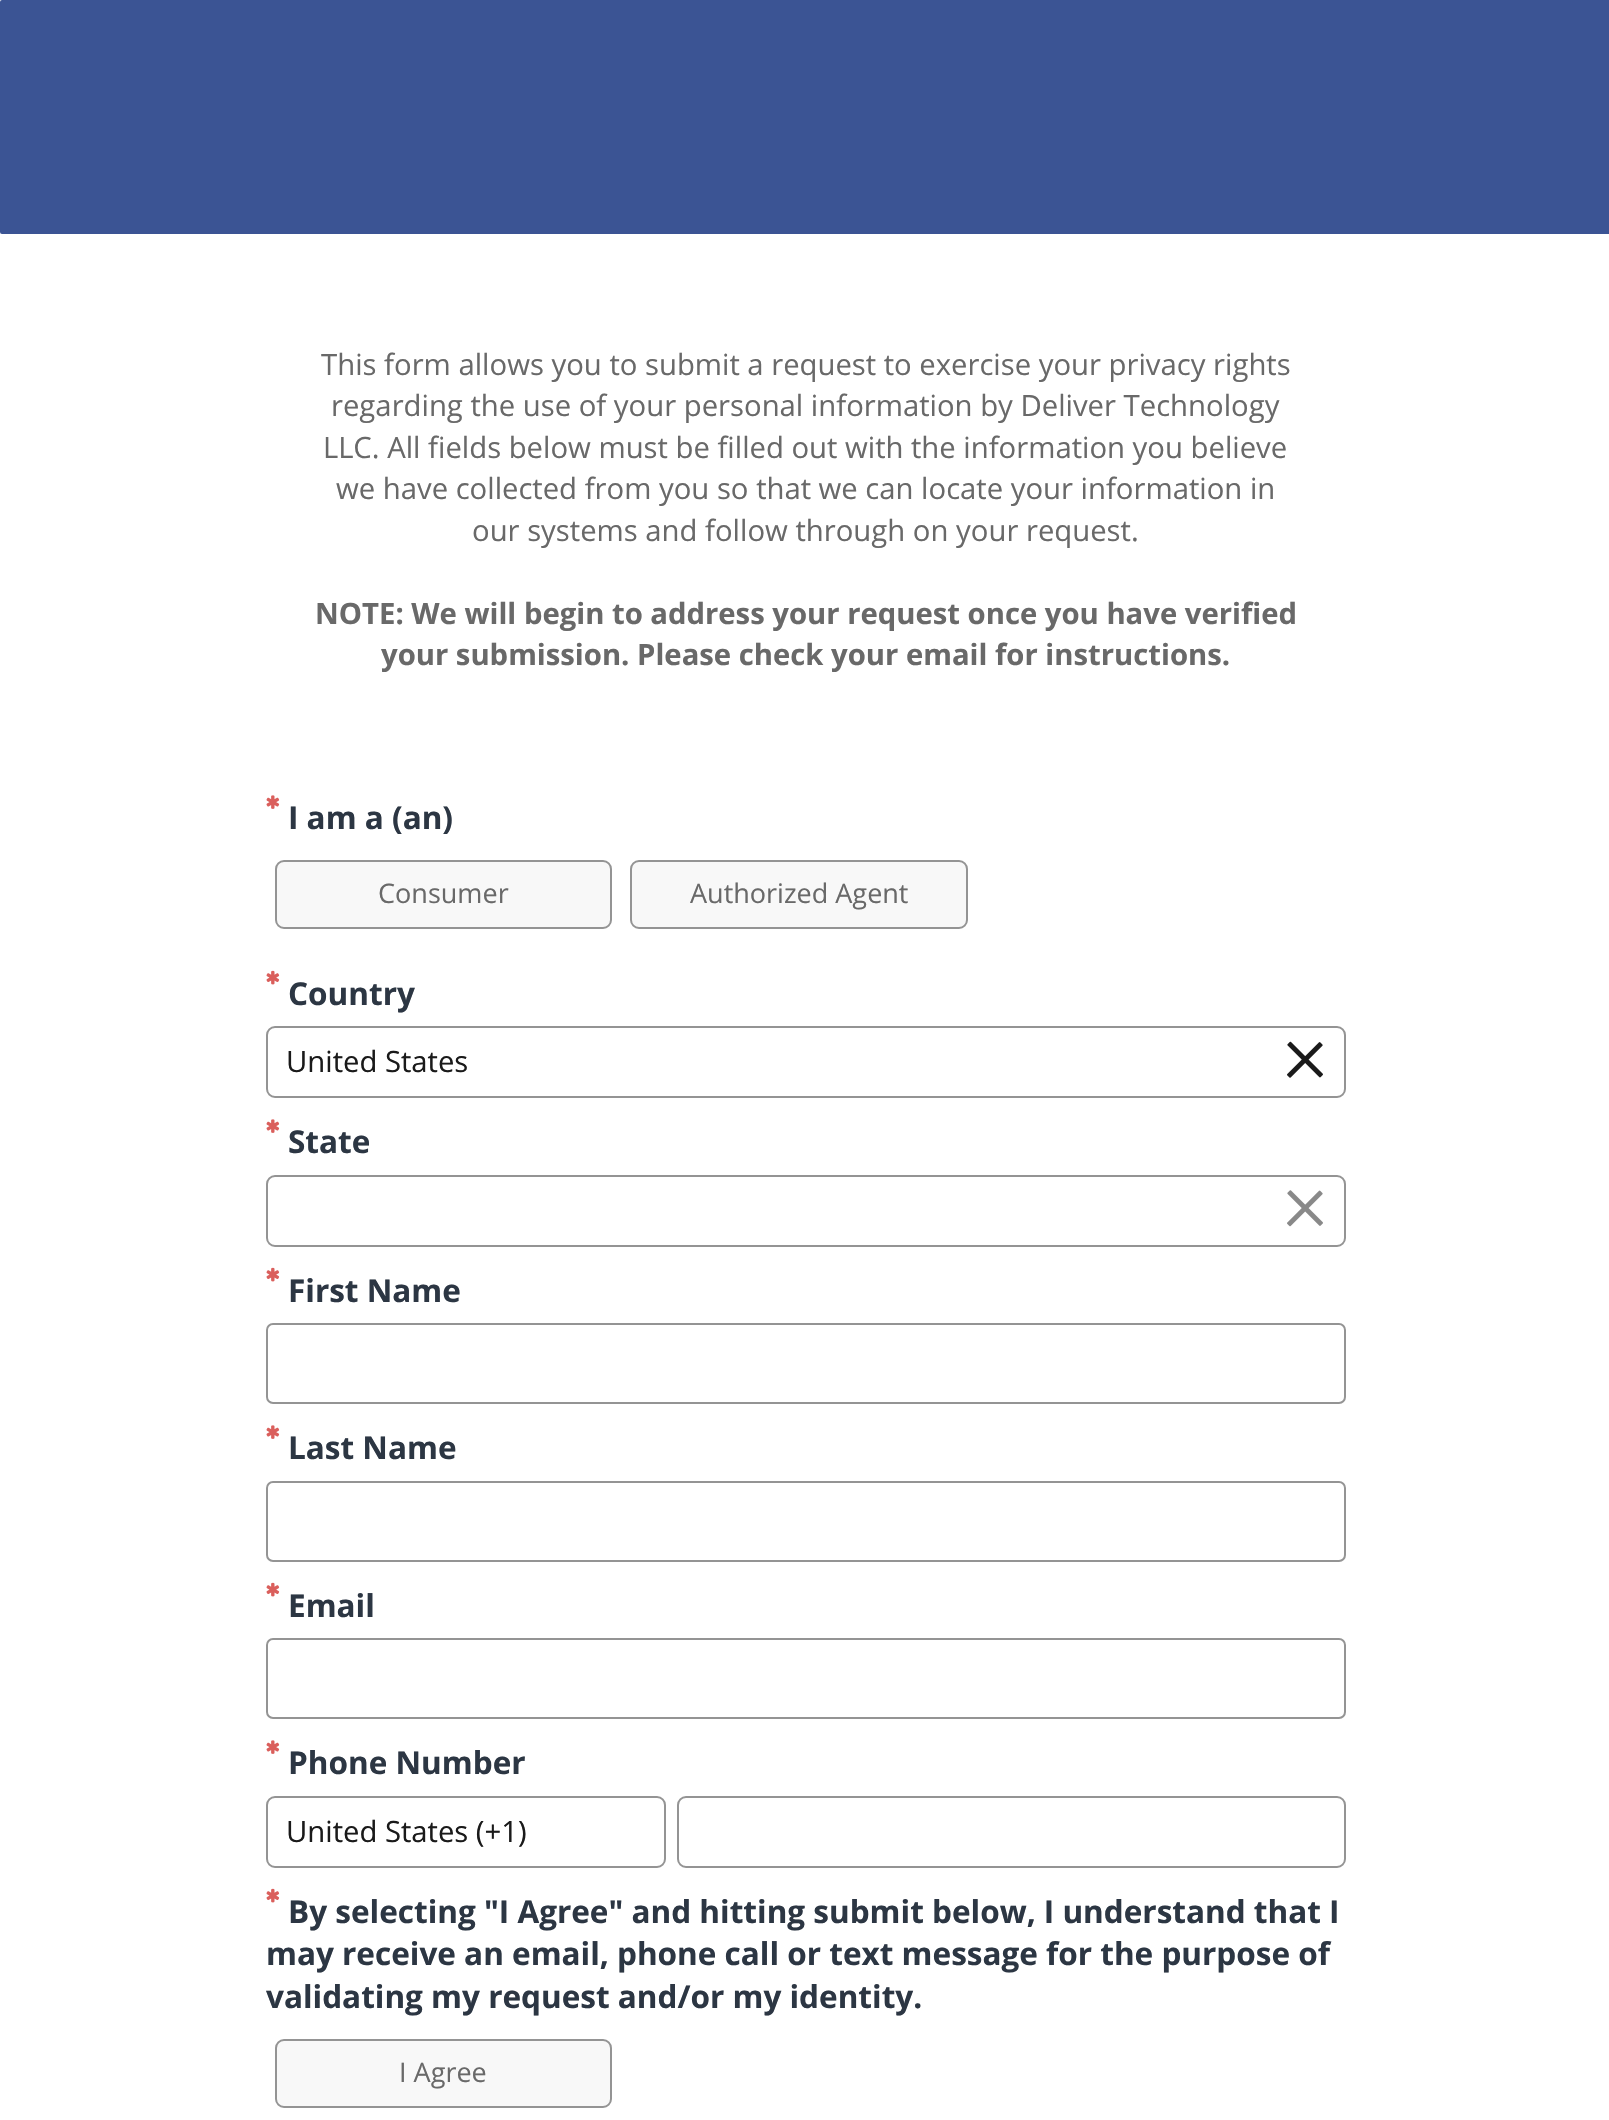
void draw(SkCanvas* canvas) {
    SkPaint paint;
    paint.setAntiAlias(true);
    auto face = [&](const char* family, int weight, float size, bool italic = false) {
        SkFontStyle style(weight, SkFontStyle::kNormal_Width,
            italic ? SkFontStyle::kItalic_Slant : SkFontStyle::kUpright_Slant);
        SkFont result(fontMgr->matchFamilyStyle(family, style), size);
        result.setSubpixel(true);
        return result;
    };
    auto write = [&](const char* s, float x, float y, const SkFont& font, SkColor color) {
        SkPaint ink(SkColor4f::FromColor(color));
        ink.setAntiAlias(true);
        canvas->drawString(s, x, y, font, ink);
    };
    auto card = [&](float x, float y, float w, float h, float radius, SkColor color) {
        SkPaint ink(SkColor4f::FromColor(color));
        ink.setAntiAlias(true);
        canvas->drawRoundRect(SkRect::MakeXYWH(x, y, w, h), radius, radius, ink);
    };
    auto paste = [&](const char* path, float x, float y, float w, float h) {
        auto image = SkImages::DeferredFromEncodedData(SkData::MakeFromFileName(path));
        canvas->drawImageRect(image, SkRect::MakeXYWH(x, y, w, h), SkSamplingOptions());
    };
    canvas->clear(SK_ColorWHITE);
    card(0, 0, 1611, 234, 2, SkColorSetRGB(59, 84, 148));
    auto kFont1 = face("Open Sans", 400, 29.25f);
    write("This form allows you to submit a request to exercise your privacy rights", 321, 375, kFont1, SkColorSetRGB(105, 105, 105));
    write("regarding the use of your personal information by Deliver Technology", 331, 416, kFont1, SkColorSetRGB(105, 105, 105));
    write("LLC. All fields below must be filled out with the information you believe", 323, 458, kFont1, SkColorSetRGB(105, 105, 105));
    write("we have collected from you so that we can locate your information in", 336, 499, kFont1, SkColorSetRGB(105, 105, 105));
    write("our systems and follow through on your request.", 472, 541, kFont1, SkColorSetRGB(105, 105, 105));
    auto kFont2 = face("Open Sans", 700, 29.25f);
    write("NOTE: We will begin to address your request once you have verified", 315, 624, kFont2, SkColorSetRGB(105, 105, 105));
    write("your submission. Please check your email for instructions.", 381, 665, kFont2, SkColorSetRGB(105, 105, 105));
    paste("pic1.png", 266, 795, 14, 14);
    auto kFont3 = face("Open Sans", 700, 31.5f);
    write("I am a (an)", 288, 829, kFont3, SkColorSetRGB(44, 54, 67));
    paint.setColor(SkColorSetRGB(248, 248, 248));
    canvas->drawRoundRect(SkRect::MakeXYWH(276, 861, 335, 67), 8, 8, paint);
    paint.setStyle(SkPaint::kStroke_Style);
    paint.setStrokeWidth(2);
    paint.setColor(SkColorSetRGB(148, 148, 148));
    canvas->drawRoundRect(SkRect::MakeXYWH(276, 861, 335, 67), 8, 8, paint);
    auto kFont4 = face("Open Sans", 400, 27);
    write("Consumer", 378, 903, kFont4, SkColorSetRGB(105, 105, 105));
    paint.setStyle(SkPaint::kFill_Style);
    paint.setColor(SkColorSetRGB(248, 248, 248));
    canvas->drawRoundRect(SkRect::MakeXYWH(631, 861, 336, 67), 8, 8, paint);
    paint.setStyle(SkPaint::kStroke_Style);
    paint.setColor(SkColorSetRGB(148, 148, 148));
    canvas->drawRoundRect(SkRect::MakeXYWH(631, 861, 336, 67), 8, 8, paint);
    write("Authorized Agent", 690, 903, kFont4, SkColorSetRGB(105, 105, 105));
    paste("pic2.png", 266, 970, 14, 15);
    write("Country", 288, 1005, kFont3, SkColorSetRGB(44, 54, 67));
    canvas->drawRoundRect(SkRect::MakeXYWH(267, 1027, 1078, 70), 8, 8, paint);
    write("United States", 286, 1072, kFont1, SkColorSetRGB(26, 26, 26));
    paste("pic3.png", 1287, 1041, 36, 37);
    paste("pic1.png", 266, 1119, 14, 14);
    write("State", 288, 1153, kFont3, SkColorSetRGB(44, 54, 67));
    canvas->drawRoundRect(SkRect::MakeXYWH(267, 1176, 1078, 70), 8, 8, paint);
    paste("pic4.png", 1287, 1190, 36, 37);
    paste("pic2.png", 266, 1267, 14, 15);
    write("First Name", 288, 1302, kFont3, SkColorSetRGB(44, 54, 67));
    canvas->drawRoundRect(SkRect::MakeXYWH(267, 1324, 1078, 79), 6, 6, paint);
    paste("pic1.png", 266, 1425, 14, 14);
    write("Last Name", 288, 1459, kFont3, SkColorSetRGB(44, 54, 67));
    canvas->drawRoundRect(SkRect::MakeXYWH(267, 1482, 1078, 79), 6, 6, paint);
    paste("pic2.png", 266, 1582, 14, 15);
    write("Email", 288, 1617, kFont3, SkColorSetRGB(44, 54, 67));
    canvas->drawRoundRect(SkRect::MakeXYWH(267, 1639, 1078, 79), 6, 6, paint);
    paste("pic1.png", 266, 1740, 14, 14);
    write("Phone Number", 288, 1774, kFont3, SkColorSetRGB(44, 54, 67));
    canvas->drawRoundRect(SkRect::MakeXYWH(267, 1797, 398, 70), 8, 8, paint);
    write("United States (+1)", 286, 1842, kFont1, SkColorSetRGB(26, 26, 26));
    canvas->drawRoundRect(SkRect::MakeXYWH(678, 1797, 667, 70), 8, 8, paint);
    paste("pic2.png", 266, 1888, 14, 15);
    write("By selecting \"I Agree\" and hitting submit below, I understand that I", 288, 1923, kFont3, SkColorSetRGB(44, 54, 67));
    write("may receive an email, phone call or text message for the purpose of", 266, 1965, kFont3, SkColorSetRGB(44, 54, 67));
    write("validating my request and/or my identity.", 266, 2008, kFont3, SkColorSetRGB(44, 54, 67));
    paint.setStyle(SkPaint::kFill_Style);
    paint.setColor(SkColorSetRGB(248, 248, 248));
    canvas->drawRoundRect(SkRect::MakeXYWH(276, 2040, 335, 67), 8, 8, paint);
    paint.setStyle(SkPaint::kStroke_Style);
    paint.setColor(SkColorSetRGB(148, 148, 148));
    canvas->drawRoundRect(SkRect::MakeXYWH(276, 2040, 335, 67), 8, 8, paint);
    write("I Agree", 399, 2082, kFont4, SkColorSetRGB(105, 105, 105));
}
